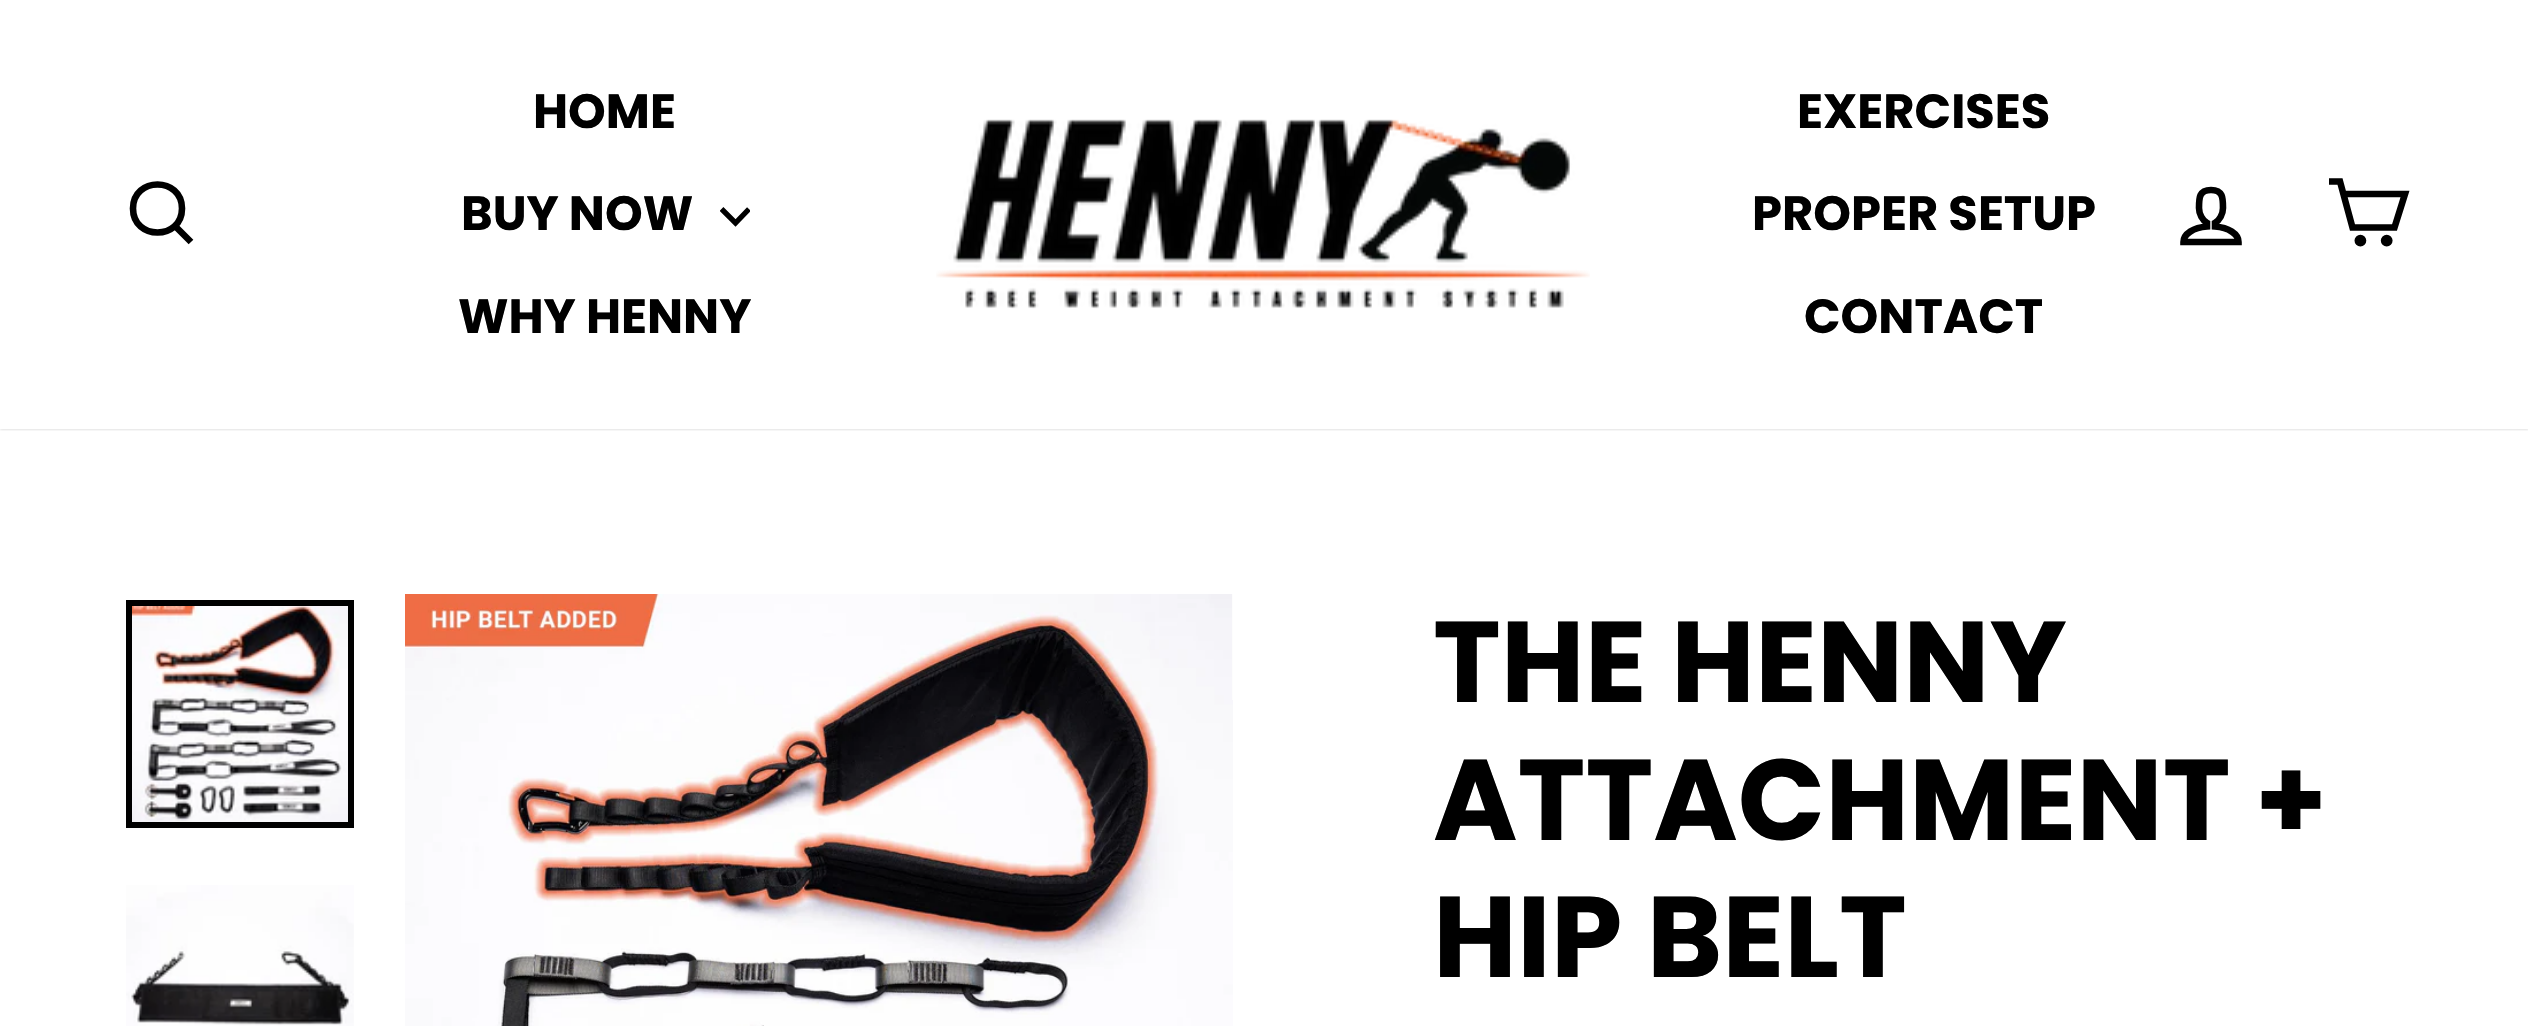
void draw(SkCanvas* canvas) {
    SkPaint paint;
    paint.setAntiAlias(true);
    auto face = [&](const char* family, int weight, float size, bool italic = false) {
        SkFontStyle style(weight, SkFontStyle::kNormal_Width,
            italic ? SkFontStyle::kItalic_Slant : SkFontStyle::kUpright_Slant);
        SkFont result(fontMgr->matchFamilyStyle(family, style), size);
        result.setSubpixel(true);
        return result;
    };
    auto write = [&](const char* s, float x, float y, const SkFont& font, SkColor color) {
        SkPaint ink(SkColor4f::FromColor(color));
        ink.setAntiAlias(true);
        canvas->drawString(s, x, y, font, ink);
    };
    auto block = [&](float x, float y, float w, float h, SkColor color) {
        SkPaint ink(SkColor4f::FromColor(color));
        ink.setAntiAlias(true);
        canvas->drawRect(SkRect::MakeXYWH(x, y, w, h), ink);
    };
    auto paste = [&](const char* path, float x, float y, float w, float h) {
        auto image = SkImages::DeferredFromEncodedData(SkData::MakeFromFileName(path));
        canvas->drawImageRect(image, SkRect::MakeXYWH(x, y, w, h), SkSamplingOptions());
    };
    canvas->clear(SK_ColorWHITE);
    canvas->save();
    canvas->clipRect(SkRect::MakeXYWH(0, 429, 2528, 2));
    paint.setColor(SkColorSetARGB(51, 0, 0, 0));
    paint.setMaskFilter(SkMaskFilter::MakeBlur(kNormal_SkBlurStyle, 1.5f));
    canvas->drawRect(SkRect::MakeXYWH(0, 0, 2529, 429), paint);
    paint.setMaskFilter(nullptr);
    canvas->restore();
    paint.setStyle(SkPaint::kStroke_Style);
    paint.setStrokeWidth(6.6f);
    paint.setColor(SK_ColorBLACK);
    canvas->drawPath(SkPathBuilder().moveTo(182, 208.5f).cubicTo(182, 240.5f, 133, 240.5f, 133, 208.5f).cubicTo(133, 176.5f, 182, 176.5f, 182, 208.5f).close().moveTo(191, 242).lineTo(175, 226).detach(), paint);
    auto kFont1 = face("Poppins", 700, 48);
    write("HOME", 533, 128, kFont1, SK_ColorBLACK);
    write("BUY NOW", 461, 230, kFont1, SK_ColorBLACK);
    canvas->save();
    canvas->clipRect(SkRect::MakeXYWH(720, 201, 30, 30));
    paint.setStrokeWidth(5.4f);
    canvas->drawPath(SkPathBuilder().moveTo(721.5f, 209).lineTo(735.5f, 223).lineTo(749, 209).detach(), paint);
    canvas->restore();
    write("WHY HENNY", 458, 333, kFont1, SK_ColorBLACK);
    paste("pic1.png", 936, 119, 654, 190);
    write("EXERCISES", 1797, 128, kFont1, SK_ColorBLACK);
    write("PROPER SETUP", 1752, 230, kFont1, SK_ColorBLACK);
    write("CONTACT", 1804, 333, kFont1, SK_ColorBLACK);
    paint.setStrokeWidth(6.6f);
    canvas->drawPath(SkPathBuilder().moveTo(2215, 226.5f).lineTo(2215, 223).cubicTo(2219.5f, 220.5f, 2223, 214, 2223, 208).cubicTo(2223, 198, 2223, 190, 2211, 190).cubicTo(2199, 190, 2199, 198, 2199, 208).cubicTo(2199, 214, 2202.5f, 220.5f, 2207, 223).lineTo(2207, 226.5f).cubicTo(2193.5f, 227.5f, 2183.5f, 234, 2183.5f, 242).lineTo(2238.5f, 242).cubicTo(2238.5f, 234, 2228.5f, 227.5f, 2215, 226.5f).close().detach(), paint);
    canvas->drawPath(SkPathBuilder().moveTo(2343.5f, 194).lineTo(2405, 194).lineTo(2394.5f, 227.5f).lineTo(2352.5f, 227.5f).lineTo(2340, 181.5f).lineTo(2329, 181.5f).detach(), paint);
    paint.setStyle(SkPaint::kFill_Style);
    canvas->drawCircle(2360.4f, 240.6f, 2.6f, paint);
    paint.setStyle(SkPaint::kStroke_Style);
    canvas->drawCircle(2360.4f, 240.6f, 2.6f, paint);
    paint.setStyle(SkPaint::kFill_Style);
    canvas->drawCircle(2386.7f, 240.6f, 2.6f, paint);
    paint.setStyle(SkPaint::kStroke_Style);
    canvas->drawCircle(2386.7f, 240.6f, 2.6f, paint);
    paste("pic2.png", 132, 606, 216, 216);
    paint.setStrokeWidth(6);
    canvas->drawRect(SkRect::MakeXYWH(129, 603, 222, 222), paint);
    paste("pic3.png", 126, 885, 228, 141);
    paste("pic4.png", 405, 594, 828, 432);
    block(1232, 594, 1, 106, SkColorSetRGB(253, 253, 253));
    auto kFont2 = face("Poppins", 700, 114.75f);
    write("THE HENNY", 1433, 702, kFont2, SK_ColorBLACK);
    write("ATTACHMENT +", 1433, 840, kFont2, SK_ColorBLACK);
    write("HIP BELT", 1433, 977, kFont2, SK_ColorBLACK);
}
